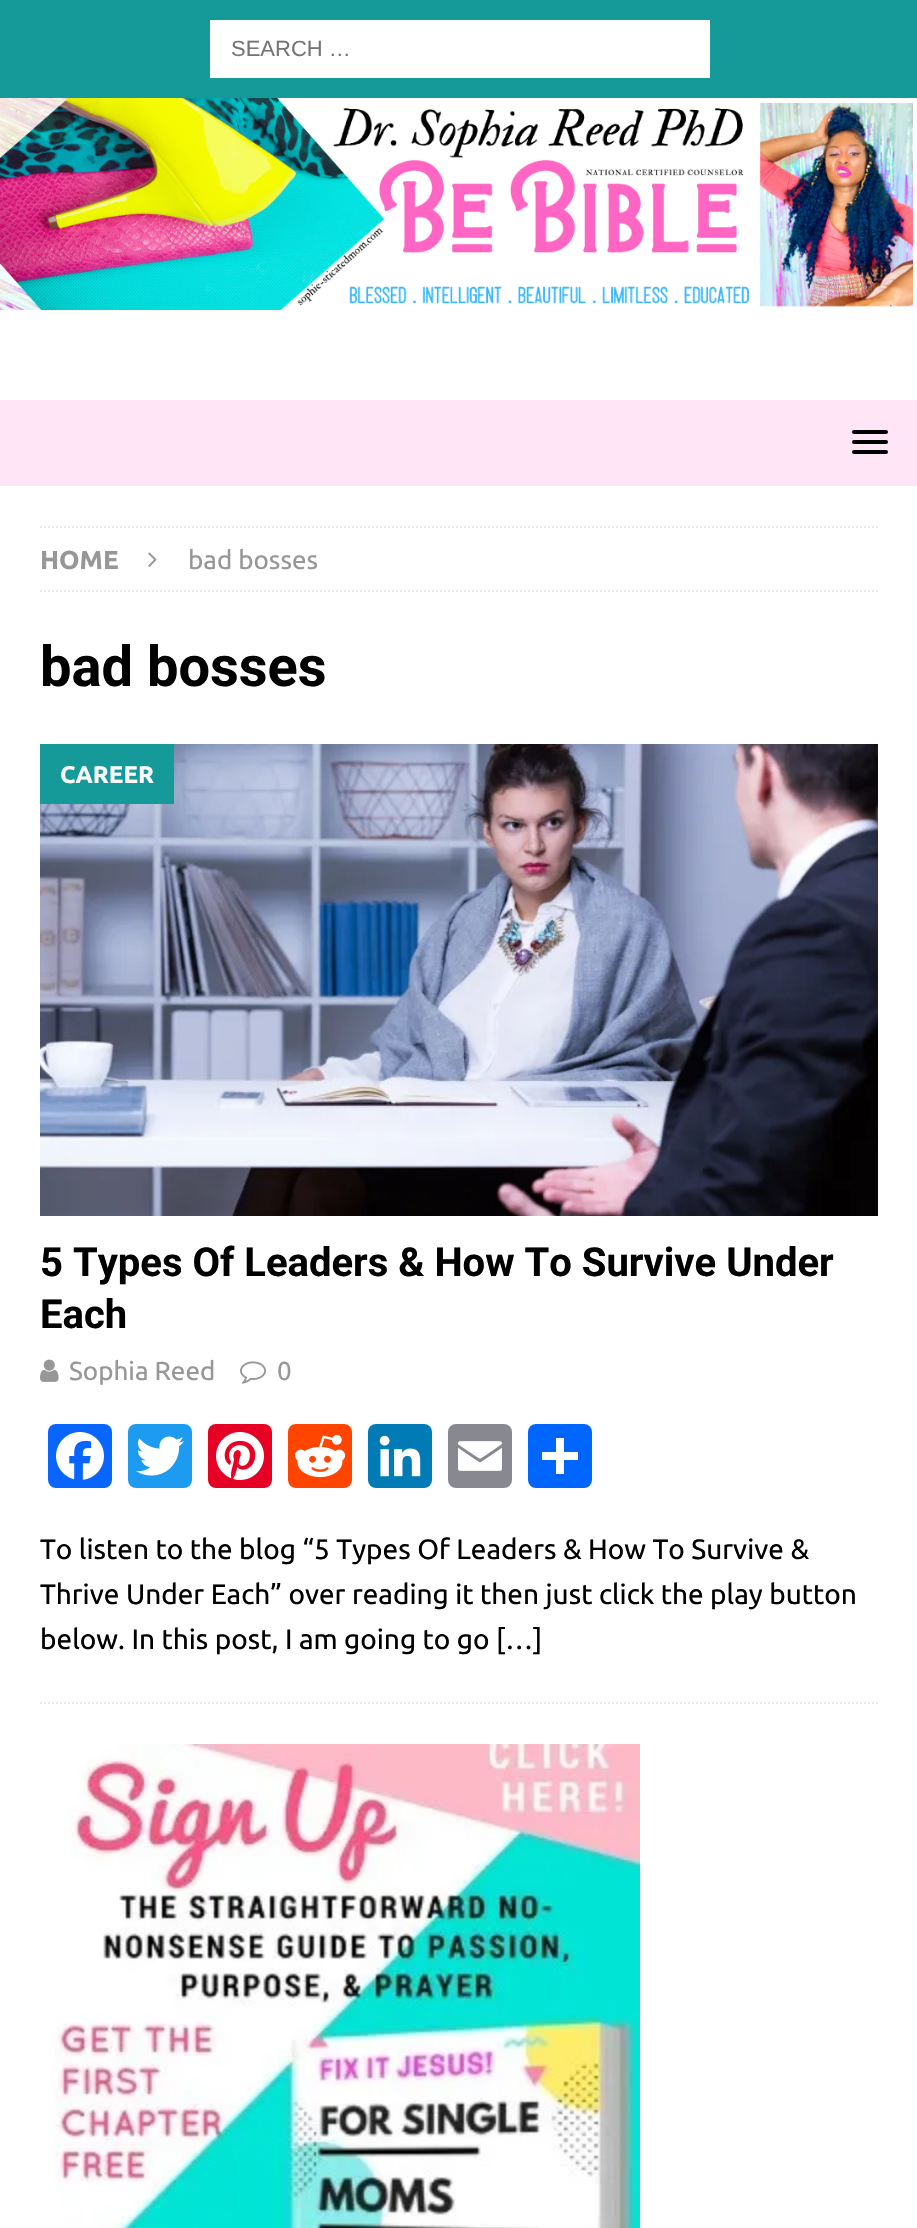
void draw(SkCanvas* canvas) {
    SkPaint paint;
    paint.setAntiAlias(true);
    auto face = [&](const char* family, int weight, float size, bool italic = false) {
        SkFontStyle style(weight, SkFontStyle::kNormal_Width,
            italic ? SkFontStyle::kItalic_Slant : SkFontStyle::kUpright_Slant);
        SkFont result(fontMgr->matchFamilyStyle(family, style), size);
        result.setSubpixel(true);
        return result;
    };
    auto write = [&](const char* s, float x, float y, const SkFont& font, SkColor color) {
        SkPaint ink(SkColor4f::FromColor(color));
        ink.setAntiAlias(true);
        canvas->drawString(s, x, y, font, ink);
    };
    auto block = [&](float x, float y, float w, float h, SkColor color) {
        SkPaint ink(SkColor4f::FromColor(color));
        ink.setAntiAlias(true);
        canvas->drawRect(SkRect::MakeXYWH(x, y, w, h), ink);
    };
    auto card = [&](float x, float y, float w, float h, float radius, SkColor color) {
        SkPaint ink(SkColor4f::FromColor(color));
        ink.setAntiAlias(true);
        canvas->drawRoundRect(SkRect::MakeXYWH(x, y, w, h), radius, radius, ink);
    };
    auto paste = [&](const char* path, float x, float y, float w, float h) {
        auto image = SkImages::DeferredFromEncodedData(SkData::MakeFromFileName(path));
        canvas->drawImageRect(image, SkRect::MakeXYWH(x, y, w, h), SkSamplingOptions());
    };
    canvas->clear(SkColorSetRGB(21, 153, 153));
    block(210, 20, 500, 58, SK_ColorWHITE);
    auto kFont1 = face("Liberation Sans", 400, 22);
    write("SEARCH …", 231, 56, kFont1, SkColorSetRGB(117, 117, 117));
    block(0, 98, 917, 302, SK_ColorWHITE);
    paste("pic1.png", 0, 98, 913, 212);
    block(0, 400, 917, 86, SkColorSetRGB(255, 229, 245));
    card(852, 430, 36, 4, 2, SK_ColorBLACK);
    card(852, 440, 36, 4, 2, SK_ColorBLACK);
    card(852, 450, 36, 4, 2, SK_ColorBLACK);
    block(0, 486, 917, 1742, SK_ColorWHITE);
    paint.setStyle(SkPaint::kStroke_Style);
    paint.setStrokeWidth(2);
    paint.setColor(SkColorSetRGB(235, 235, 235));
    paint.setPathEffect(SkDashPathEffect::Make({{2, 2}}, 0));
    canvas->drawPath(SkPathBuilder().moveTo(40, 527).lineTo(878, 527).detach(), paint);
    paint.setPathEffect(nullptr);
    paint.setPathEffect(SkDashPathEffect::Make({{2, 2}}, 0));
    canvas->drawPath(SkPathBuilder().moveTo(40, 591).lineTo(878, 591).detach(), paint);
    paint.setPathEffect(nullptr);
    auto kFont2 = face("Ubuntu", 700, 26);
    write("HOME", 40, 569, kFont2, SkColorSetRGB(151, 151, 151));
    paste("pic2.png", 148, 552, 9, 15);
    auto kFont3 = face("Ubuntu", 400, 26);
    write("bad bosses", 188, 569, kFont3, SkColorSetRGB(151, 151, 151));
    auto kFont4 = face("Roboto", 700, 56);
    write("bad bosses", 40, 686, kFont4, SK_ColorBLACK);
    paint.setPathEffect(SkDashPathEffect::Make({{2, 2}}, 0));
    canvas->drawPath(SkPathBuilder().moveTo(40, 1703).lineTo(878, 1703).detach(), paint);
    paint.setPathEffect(nullptr);
    paste("pic3.png", 40, 744, 838, 472);
    block(40, 744, 134, 60, SkColorSetRGB(21, 153, 153));
    auto kFont5 = face("Ubuntu", 700, 24);
    write("CAREER", 60, 783, kFont5, SkColorSetRGB(249, 249, 249));
    auto kFont6 = face("Roboto", 700, 40);
    write("5 Types Of Leaders & How To Survive Under", 40, 1276, kFont6, SK_ColorBLACK);
    write("Each", 40, 1328, kFont6, SK_ColorBLACK);
    paste("pic4.png", 40, 1359, 19, 23);
    write("Sophia Reed", 69, 1380, kFont3, SkColorSetRGB(151, 151, 151));
    paste("pic5.png", 240, 1361, 26, 23);
    write("0", 277, 1380, kFont3, SkColorSetRGB(151, 151, 151));
    card(48, 1424, 64, 64, 8, SkColorSetRGB(8, 102, 255));
    paste("pic6.png", 56, 1432, 48, 48);
    card(128, 1424, 64, 64, 8, SkColorSetRGB(29, 155, 240));
    paste("pic7.png", 136, 1436, 48, 40);
    card(208, 1424, 64, 64, 8, SkColorSetRGB(230, 0, 35));
    paste("pic8.png", 216, 1432, 48, 48);
    card(288, 1424, 64, 64, 8, SkColorSetRGB(255, 69, 0));
    paste("pic9.png", 294, 1434, 52, 44);
    card(368, 1424, 64, 64, 8, SkColorSetRGB(0, 123, 181));
    paste("pic10.png", 379, 1435, 42, 42);
    card(448, 1424, 64, 64, 8, SkColorSetRGB(136, 137, 144));
    paste("pic11.png", 458, 1441, 44, 30);
    card(528, 1424, 64, 64, 8, SkColorSetRGB(1, 102, 255));
    block(556, 1438, 8, 36, SK_ColorWHITE);
    block(542, 1452, 36, 8, SK_ColorWHITE);
    auto kFont7 = face("Ubuntu", 400, 28);
    write("To listen to the blog “5 Types Of Leaders & How To Survive &", 40, 1559, kFont7, SK_ColorBLACK);
    write("Thrive Under Each” over reading it then just click the play button", 40, 1604, kFont7, SK_ColorBLACK);
    write("below. In this post, I am going to go […]", 40, 1649, kFont7, SK_ColorBLACK);
    paste("pic12.png", 55, 1744, 585, 484);
}
